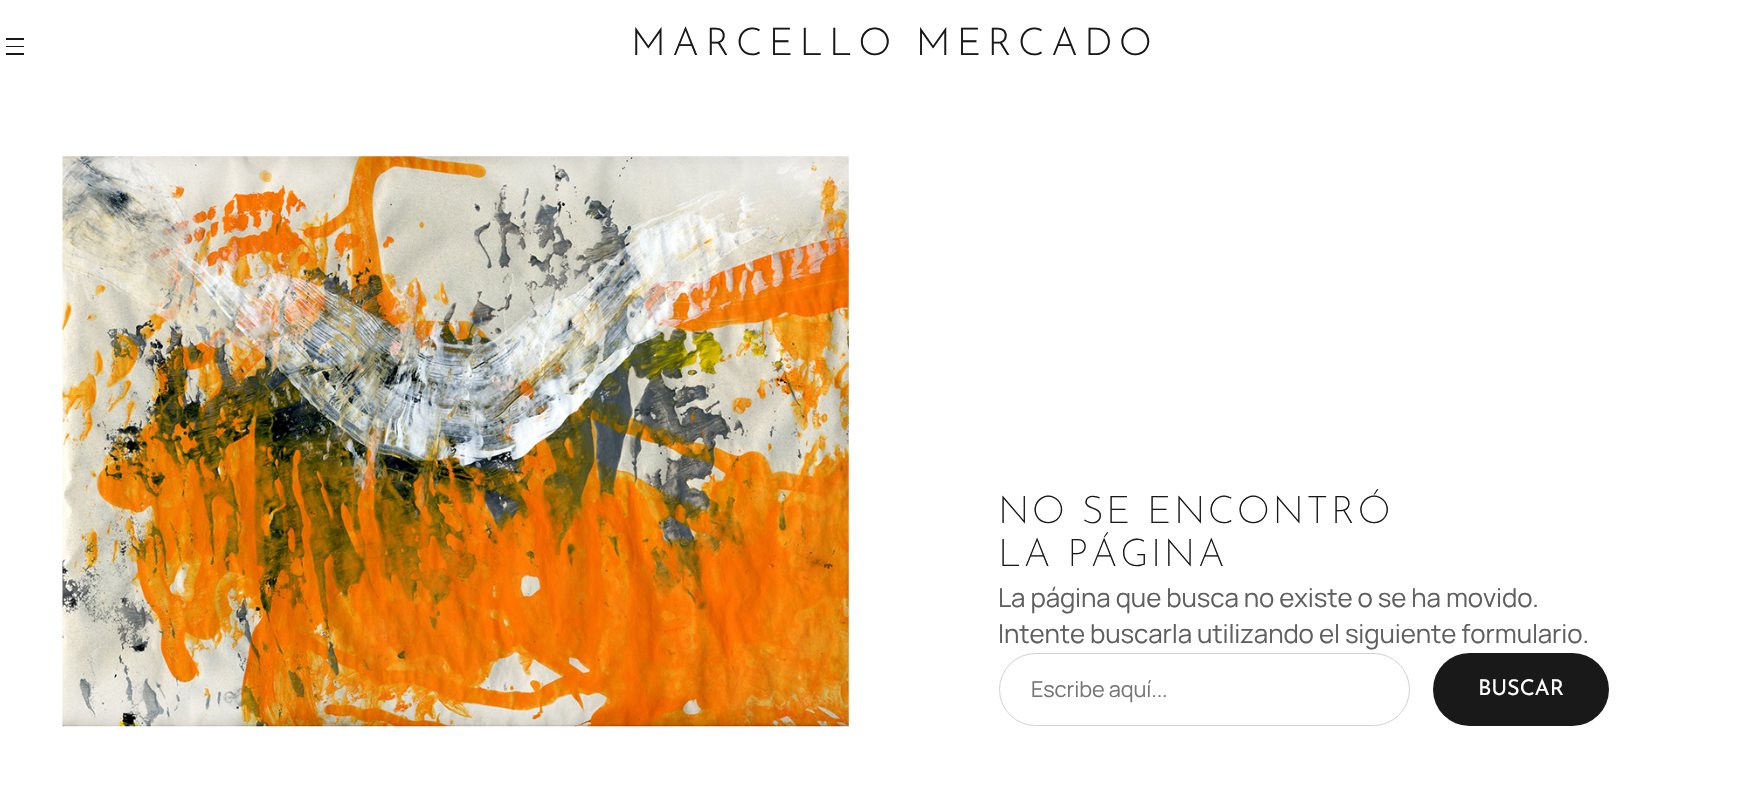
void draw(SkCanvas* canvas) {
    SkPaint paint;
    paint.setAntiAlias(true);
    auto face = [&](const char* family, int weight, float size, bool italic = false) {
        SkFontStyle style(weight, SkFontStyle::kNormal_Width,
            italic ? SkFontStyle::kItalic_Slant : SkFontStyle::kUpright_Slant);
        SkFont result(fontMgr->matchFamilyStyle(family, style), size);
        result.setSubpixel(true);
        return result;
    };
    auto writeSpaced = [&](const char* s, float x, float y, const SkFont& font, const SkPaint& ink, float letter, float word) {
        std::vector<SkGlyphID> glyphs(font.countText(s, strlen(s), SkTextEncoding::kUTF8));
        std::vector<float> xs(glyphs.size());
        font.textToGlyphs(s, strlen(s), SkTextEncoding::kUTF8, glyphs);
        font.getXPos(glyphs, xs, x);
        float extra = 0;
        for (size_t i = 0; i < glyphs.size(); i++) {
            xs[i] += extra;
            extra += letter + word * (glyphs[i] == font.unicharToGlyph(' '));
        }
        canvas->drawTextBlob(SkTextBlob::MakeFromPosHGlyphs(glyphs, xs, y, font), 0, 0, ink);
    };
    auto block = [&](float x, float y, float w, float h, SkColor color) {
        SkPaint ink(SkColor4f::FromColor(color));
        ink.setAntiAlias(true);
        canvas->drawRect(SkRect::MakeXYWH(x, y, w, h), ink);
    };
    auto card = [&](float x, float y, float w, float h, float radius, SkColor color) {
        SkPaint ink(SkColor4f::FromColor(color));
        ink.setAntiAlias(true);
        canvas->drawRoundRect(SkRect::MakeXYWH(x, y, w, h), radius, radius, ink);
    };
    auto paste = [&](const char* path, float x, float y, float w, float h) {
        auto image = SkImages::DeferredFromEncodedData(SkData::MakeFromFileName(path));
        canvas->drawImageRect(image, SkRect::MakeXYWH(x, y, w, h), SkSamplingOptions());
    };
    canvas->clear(SK_ColorWHITE);
    block(6, 38, 18, 2, SkColorSetRGB(25, 25, 25));
    block(6, 46, 18, 1, SkColorSetRGB(25, 25, 25));
    block(6, 53, 18, 2, SkColorSetRGB(25, 25, 25));
    auto kFont1 = face("Josefin Sans", 300, 38.4f);
    paint.setColor(SkColorSetRGB(25, 25, 25));
    writeSpaced("MARCELLO MERCADO", 631, 55, kFont1, paint, 6.25f, 0);
    paste("pic1.png", 62, 156, 787, 571);
    auto kFont2 = face("Josefin Sans", 200, 38.4f);
    writeSpaced("NO SE ENCONTRÓ", 998, 523, kFont2, paint, 2.5f, 0);
    writeSpaced("LA PÁGINA", 998, 566, kFont2, paint, 2.5f, 0);
    auto kFont3 = face("Manrope", 400, 25.9f);
    paint.setColor(SkColorSetRGB(95, 95, 95));
    writeSpaced("La página que busca no existe o se ha movido.", 998, 607, kFont3, paint, -0.12f, 0);
    writeSpaced("Intente buscarla utilizando el siguiente formulario.", 998, 643, kFont3, paint, -0.12f, 0);
    paint.setStyle(SkPaint::kStroke_Style);
    paint.setStrokeWidth(1);
    paint.setColor(SkColorSetRGB(209, 209, 209));
    canvas->drawRoundRect(SkRect::MakeXYWH(999.5f, 653.5f, 410, 72), 36, 36, paint);
    auto kFont4 = face("Manrope", 400, 21.75f);
    paint.setStyle(SkPaint::kFill_Style);
    paint.setColor(SkColorSetRGB(117, 117, 117));
    writeSpaced("Escribe aquí...", 1031, 697, kFont4, paint, -0.12f, 0);
    card(1433, 653, 176, 73, 36.5f, SkColorSetRGB(25, 25, 25));
    auto kFont5 = face("Josefin Sans", 400, 21.75f);
    paint.setColor(SK_ColorWHITE);
    writeSpaced("BUSCAR", 1478, 695, kFont5, paint, -0.12f, 0);
}
